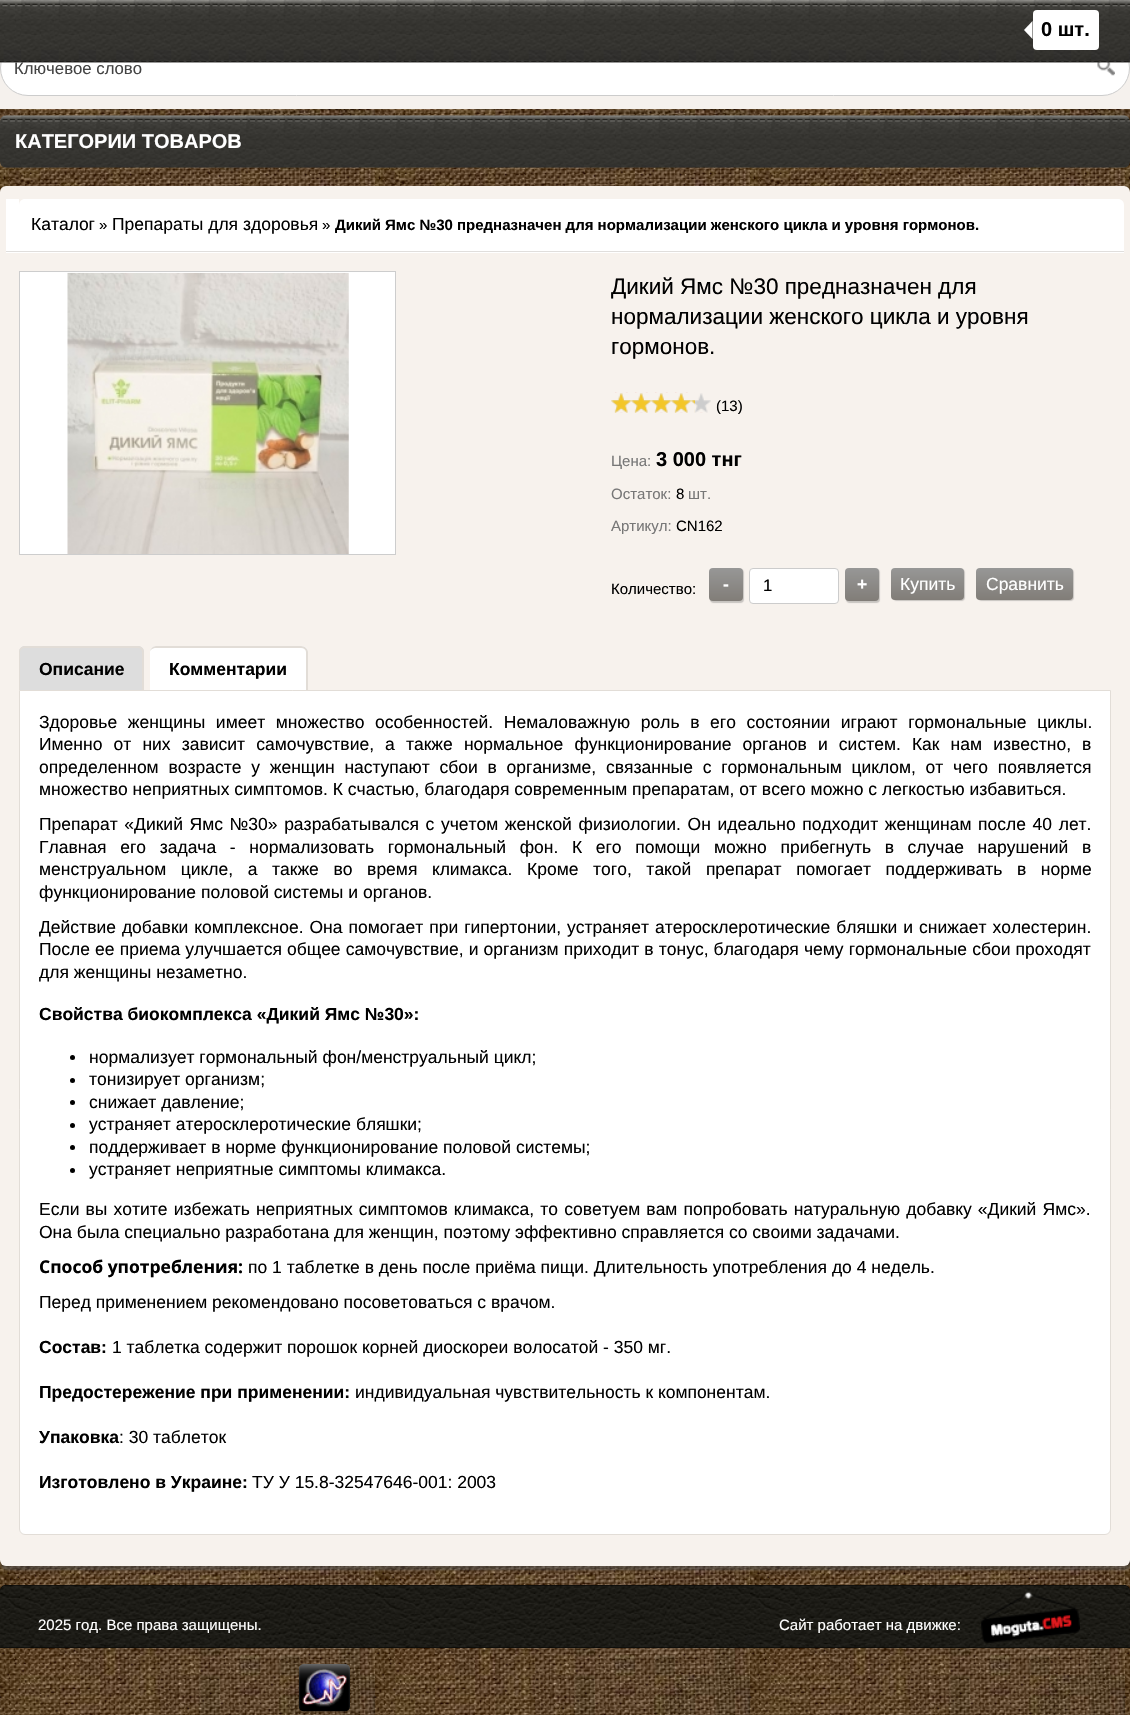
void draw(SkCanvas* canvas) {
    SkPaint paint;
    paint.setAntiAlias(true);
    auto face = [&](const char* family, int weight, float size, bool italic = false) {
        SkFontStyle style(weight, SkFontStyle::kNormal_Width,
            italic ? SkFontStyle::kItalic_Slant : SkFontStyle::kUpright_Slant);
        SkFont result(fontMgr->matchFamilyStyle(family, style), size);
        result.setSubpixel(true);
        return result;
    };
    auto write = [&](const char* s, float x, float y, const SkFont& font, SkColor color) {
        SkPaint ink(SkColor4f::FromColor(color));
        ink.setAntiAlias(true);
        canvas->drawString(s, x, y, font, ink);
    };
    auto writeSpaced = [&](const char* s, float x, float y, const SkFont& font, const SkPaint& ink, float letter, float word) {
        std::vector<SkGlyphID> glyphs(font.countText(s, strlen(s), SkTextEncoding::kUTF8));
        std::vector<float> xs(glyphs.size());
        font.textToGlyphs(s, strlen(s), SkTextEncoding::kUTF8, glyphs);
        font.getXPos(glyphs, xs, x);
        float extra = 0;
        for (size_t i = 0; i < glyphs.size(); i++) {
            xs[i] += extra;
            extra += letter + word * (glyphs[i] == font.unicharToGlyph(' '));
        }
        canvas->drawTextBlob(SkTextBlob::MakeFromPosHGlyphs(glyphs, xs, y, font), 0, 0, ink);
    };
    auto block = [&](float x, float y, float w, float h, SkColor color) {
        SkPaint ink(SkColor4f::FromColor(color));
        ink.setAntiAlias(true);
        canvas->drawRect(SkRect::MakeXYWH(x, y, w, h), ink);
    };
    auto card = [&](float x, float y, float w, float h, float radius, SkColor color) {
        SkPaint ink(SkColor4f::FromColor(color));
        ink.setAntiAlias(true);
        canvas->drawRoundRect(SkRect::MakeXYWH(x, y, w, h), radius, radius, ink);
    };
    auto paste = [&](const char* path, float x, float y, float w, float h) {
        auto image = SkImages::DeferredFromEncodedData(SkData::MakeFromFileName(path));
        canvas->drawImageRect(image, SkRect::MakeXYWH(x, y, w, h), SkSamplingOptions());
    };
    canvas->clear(SK_ColorWHITE);
    paste("pic1.png", 0, 109, 1130, 1606);
    block(0, 62, 1130, 47, SkColorSetRGB(245, 241, 237));
    paint.setColor(SK_ColorWHITE);
    canvas->drawRoundRect(SkRect::MakeXYWH(0.5f, 40.5f, 1129, 55), 27.5f, 27.5f, paint);
    paint.setStyle(SkPaint::kStroke_Style);
    paint.setStrokeWidth(1);
    paint.setColor(SkColorSetRGB(204, 204, 204));
    canvas->drawRoundRect(SkRect::MakeXYWH(0.5f, 40.5f, 1129, 55), 27.5f, 27.5f, paint);
    auto kFont1 = face("Liberation Sans", 400, 16.75f);
    write("Ключевое слово", 14, 74, kFont1, SkColorSetRGB(68, 68, 68));
    paste("pic3.png", 1097, 62, 18, 14);
    paste("pic2.png", 0, 0, 1130, 63);
    card(1033, 10, 66, 40, 4, SK_ColorWHITE);
    paint.setStyle(SkPaint::kFill_Style);
    paint.setColor(SK_ColorWHITE);
    canvas->drawPath(SkPathBuilder().moveTo(1032.5f, 21).lineTo(1032.5f, 39).lineTo(1024, 30).close().detach(), paint);
    auto kFont2 = face("Liberation Sans", 700, 20);
    write("0 шт.", 1041, 36, kFont2, SK_ColorBLACK);
    paste("pic4.png", 0, 115, 1130, 53);
    write("КАТЕГОРИИ ТОВАРОВ", 15, 148, kFont2, SK_ColorWHITE);
    paint.setColor(SkColorSetARGB(128, 80, 80, 80));
    paint.setMaskFilter(SkMaskFilter::MakeBlur(kNormal_SkBlurStyle, 1));
    canvas->drawRoundRect(SkRect::MakeXYWH(1, 190, 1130, 1380), 6, 6, paint);
    paint.setMaskFilter(nullptr);
    card(0, 186, 1130, 1380, 6, SkColorSetRGB(247, 242, 237));
    paint.setColor(SK_ColorWHITE);
    canvas->drawPath(SkPathBuilder().moveTo(25, 199).lineTo(1118, 199).cubicTo(1121.5f, 199, 1124, 201.5f, 1124, 205).lineTo(1124, 253).lineTo(19, 253).lineTo(19, 205).cubicTo(19, 201.5f, 21.5f, 199, 25, 199).close().detach(), paint);
    block(19, 251, 1105, 1, SkColorSetRGB(224, 222, 220));
    block(6, 199, 13, 54, SK_ColorWHITE);
    block(6, 251, 13, 1, SkColorSetRGB(224, 222, 220));
    auto kFont3 = face("Liberation Sans", 400, 17.5f);
    write("Каталог", 31, 230, kFont3, SK_ColorBLACK);
    auto kFont4 = face("Liberation Sans", 400, 15);
    write("»", 99, 230, kFont4, SK_ColorBLACK);
    write("Препараты для здоровья", 112, 230, kFont3, SK_ColorBLACK);
    write("»", 322, 230, kFont4, SK_ColorBLACK);
    auto kFont5 = face("Liberation Sans", 700, 15);
    write("Дикий Ямс №30 предназначен для нормализации женского цикла и уровня гормонов.", 335, 230, kFont5, SK_ColorBLACK);
    canvas->drawRect(SkRect::MakeXYWH(19.5f, 271.5f, 376, 283), paint);
    paint.setStyle(SkPaint::kStroke_Style);
    paint.setColor(SkColorSetRGB(205, 205, 205));
    canvas->drawRect(SkRect::MakeXYWH(19.5f, 271.5f, 376, 283), paint);
    paste("pic5.png", 67, 272, 282, 282);
    auto kFont6 = face("Liberation Sans", 400, 22.5f);
    write("Дикий Ямс №30 предназначен для", 611, 294, kFont6, SK_ColorBLACK);
    write("нормализации женского цикла и уровня", 611, 324, kFont6, SK_ColorBLACK);
    write("гормонов.", 611, 354, kFont6, SK_ColorBLACK);
    paste("pic6.png", 611, 393, 100, 20);
    paste("pic7.png", 611, 392, 84, 21);
    write("(13)", 716, 411, kFont4, SK_ColorBLACK);
    write("Цена:", 611, 466, kFont4, SkColorSetRGB(119, 119, 119));
    write("3 000 тнг", 656, 466, kFont2, SK_ColorBLACK);
    write("Остаток:", 611, 499, kFont4, SkColorSetRGB(119, 119, 119));
    write("8", 676, 499, kFont4, SK_ColorBLACK);
    write("шт.", 688, 499, kFont4, SkColorSetRGB(119, 119, 119));
    write("Артикул:", 611, 531, kFont4, SkColorSetRGB(119, 119, 119));
    write("CN162", 676, 531, kFont4, SK_ColorBLACK);
    write("Количество:", 611, 594, kFont4, SK_ColorBLACK);
    paint.setStyle(SkPaint::kFill_Style);
    paint.setColor(SkColorSetARGB(77, 88, 88, 88));
    paint.setMaskFilter(SkMaskFilter::MakeBlur(kNormal_SkBlurStyle, 0.5f));
    canvas->drawRoundRect(SkRect::MakeXYWH(710, 569, 34, 34), 4, 4, paint);
    paint.setMaskFilter(nullptr);
    {
        const SkColor colors[] = {SkColorSetRGB(151, 151, 150), SkColorSetRGB(129, 125, 120)};
        const float stops[] = {0, 1};
        const SkPoint ends[] = {{726, 568}, {726, 601}};
        paint.setShader(SkGradientShader::MakeLinear(ends, colors, stops, 2, SkTileMode::kClamp));
        paint.setAlpha(255);
    }
    canvas->drawRoundRect(SkRect::MakeXYWH(709, 568, 34, 33), 4, 4, paint);
    auto kFont7 = face("Liberation Sans", 700, 17.5f);
    write("-", 723, 590, kFont7, SK_ColorWHITE);
    paint.setShader(nullptr);
    paint.setColor(SkColorSetARGB(77, 88, 88, 88));
    paint.setMaskFilter(SkMaskFilter::MakeBlur(kNormal_SkBlurStyle, 0.5f));
    canvas->drawRoundRect(SkRect::MakeXYWH(846, 569, 34, 34), 4, 4, paint);
    paint.setMaskFilter(nullptr);
    {
        const SkColor colors[] = {SkColorSetRGB(151, 151, 150), SkColorSetRGB(129, 125, 120)};
        const float stops[] = {0, 1};
        const SkPoint ends[] = {{862, 568}, {862, 601}};
        paint.setShader(SkGradientShader::MakeLinear(ends, colors, stops, 2, SkTileMode::kClamp));
        paint.setAlpha(255);
    }
    canvas->drawRoundRect(SkRect::MakeXYWH(845, 568, 34, 33), 4, 4, paint);
    write("+", 857, 590, kFont7, SK_ColorWHITE);
    paint.setShader(nullptr);
    paint.setColor(SK_ColorWHITE);
    canvas->drawRoundRect(SkRect::MakeXYWH(749.5f, 568.5f, 89, 35), 3.5f, 3.5f, paint);
    paint.setStyle(SkPaint::kStroke_Style);
    paint.setColor(SkColorSetRGB(204, 204, 204));
    canvas->drawRoundRect(SkRect::MakeXYWH(749.5f, 568.5f, 89, 35), 3.5f, 3.5f, paint);
    write("1", 763, 591, kFont1, SK_ColorBLACK);
    paint.setStyle(SkPaint::kFill_Style);
    paint.setColor(SkColorSetARGB(77, 88, 88, 88));
    paint.setMaskFilter(SkMaskFilter::MakeBlur(kNormal_SkBlurStyle, 0.5f));
    canvas->drawRoundRect(SkRect::MakeXYWH(893, 569, 72, 32), 4, 4, paint);
    paint.setMaskFilter(nullptr);
    {
        const SkColor colors[] = {SkColorSetRGB(151, 151, 150), SkColorSetRGB(129, 125, 120)};
        const float stops[] = {0, 1};
        const SkPoint ends[] = {{928, 568}, {928, 600}};
        paint.setShader(SkGradientShader::MakeLinear(ends, colors, stops, 2, SkTileMode::kClamp));
        paint.setAlpha(255);
    }
    canvas->drawRoundRect(SkRect::MakeXYWH(891, 568, 73, 32), 4, 4, paint);
    write("Купить", 900, 590, kFont3, SK_ColorWHITE);
    paint.setShader(nullptr);
    paint.setColor(SkColorSetARGB(77, 88, 88, 88));
    paint.setMaskFilter(SkMaskFilter::MakeBlur(kNormal_SkBlurStyle, 0.5f));
    canvas->drawRoundRect(SkRect::MakeXYWH(978, 569, 96, 32), 4, 4, paint);
    paint.setMaskFilter(nullptr);
    {
        const SkColor colors[] = {SkColorSetRGB(151, 151, 150), SkColorSetRGB(129, 125, 120)};
        const float stops[] = {0, 1};
        const SkPoint ends[] = {{1024, 568}, {1024, 600}};
        paint.setShader(SkGradientShader::MakeLinear(ends, colors, stops, 2, SkTileMode::kClamp));
        paint.setAlpha(255);
    }
    canvas->drawRoundRect(SkRect::MakeXYWH(976, 568, 97, 32), 4, 4, paint);
    write("Сравнить", 986, 590, kFont3, SK_ColorWHITE);
    paint.setShader(nullptr);
    paint.setColor(SkColorSetRGB(221, 221, 221));
    canvas->drawPath(SkPathBuilder().moveTo(25, 646).lineTo(138, 646).cubicTo(141.5f, 646, 144, 648.5f, 144, 652).lineTo(144, 690).lineTo(19, 690).lineTo(19, 652).cubicTo(19, 648.5f, 21.5f, 646, 25, 646).close().detach(), paint);
    canvas->save();
    canvas->clipRect(SkRect::MakeXYWH(19, 646, 1092, 44));
    paint.setColor(SkColorSetRGB(226, 221, 215));
    canvas->drawPath(SkPathBuilder(SkPathFillType::kEvenOdd).moveTo(25, 646).lineTo(138, 646).cubicTo(141, 646, 144, 649, 144, 652).lineTo(144, 691).lineTo(19, 691).lineTo(19, 652).cubicTo(19, 649, 22, 646, 25, 646).close().moveTo(25, 648).lineTo(138, 648).cubicTo(140, 648, 142, 650, 142, 652).lineTo(142, 691).lineTo(20, 691).lineTo(20, 652).cubicTo(20, 650, 22, 648, 25, 648).close().detach(), paint);
    canvas->restore();
    write("Описание", 39, 675, kFont7, SK_ColorBLACK);
    paint.setColor(SK_ColorWHITE);
    canvas->drawPath(SkPathBuilder().moveTo(156, 646).lineTo(302, 646).cubicTo(305.5f, 646, 308, 648.5f, 308, 652).lineTo(308, 690).lineTo(150, 690).lineTo(150, 652).cubicTo(150, 648.5f, 152.5f, 646, 156, 646).close().detach(), paint);
    paint.setColor(SkColorSetRGB(226, 221, 215));
    canvas->drawPath(SkPathBuilder(SkPathFillType::kEvenOdd).moveTo(156, 646).lineTo(301, 646).cubicTo(305, 646, 308, 649, 308, 652).lineTo(308, 691).lineTo(150, 691).lineTo(150, 652).cubicTo(150, 649, 153, 646, 156, 646).close().moveTo(156, 648).lineTo(301, 648).cubicTo(304, 648, 306, 650, 306, 652).lineTo(306, 691).lineTo(150, 691).lineTo(150, 652).cubicTo(150, 650, 153, 648, 156, 648).close().detach(), paint);
    write("Комментарии", 169, 675, kFont7, SK_ColorBLACK);
    paint.setColor(SK_ColorWHITE);
    canvas->drawPath(SkPathBuilder().moveTo(19.5f, 690.5f).lineTo(1110.5f, 690.5f).lineTo(1110.5f, 1529).cubicTo(1110.5f, 1532, 1108, 1534.5f, 1105, 1534.5f).lineTo(25, 1534.5f).cubicTo(22, 1534.5f, 19.5f, 1532, 19.5f, 1529).close().detach(), paint);
    paint.setStyle(SkPaint::kStroke_Style);
    paint.setColor(SkColorSetRGB(226, 221, 215));
    canvas->drawPath(SkPathBuilder().moveTo(19.5f, 690.5f).lineTo(1110.5f, 690.5f).lineTo(1110.5f, 1529).cubicTo(1110.5f, 1532, 1108, 1534.5f, 1105, 1534.5f).lineTo(25, 1534.5f).cubicTo(22, 1534.5f, 19.5f, 1532, 19.5f, 1529).close().detach(), paint);
    paint.setStyle(SkPaint::kFill_Style);
    paint.setColor(SK_ColorBLACK);
    writeSpaced("Здоровье женщины имеет множество особенностей. Немаловажную роль в его состоянии играют гормональные циклы.", 39, 728, kFont3, paint, 0, 5.75f);
    writeSpaced("Именно от них зависит самочувствие, а также нормальное функционирование органов и систем. Как нам известно, в", 39, 750, kFont3, paint, 0, 6.25f);
    writeSpaced("определенном возрасте у женщин наступают сбои в организме, связанные с гормональным циклом, от чего появляется", 39, 773, kFont3, paint, 0, 4.9f);
    write("множество неприятных симптомов. К счастью, благодаря современным препаратам, от всего можно с легкостью избавиться.", 39, 795, kFont3, SK_ColorBLACK);
    writeSpaced("Препарат «Дикий Ямс №30» разрабатывался с учетом женской физиологии. Он идеально подходит женщинам после 40 лет.", 39, 830, kFont3, paint, 0, 1.75f);
    writeSpaced("Главная его задача - нормализовать гормональный фон. К его помощи можно прибегнуть в случае нарушений в", 39, 853, kFont3, paint, 0, 8.75f);
    writeSpaced("менструальном цикле, а также во время климакса. Кроме того, такой препарат помогает поддерживать в норме", 39, 875, kFont3, paint, 0, 9.75f);
    write("функционирование половой системы и органов.", 39, 898, kFont3, SK_ColorBLACK);
    writeSpaced("Действие добавки комплексное. Она помогает при гипертонии, устраняет атеросклеротические бляшки и снижает холестерин.", 39, 933, kFont3, paint, 0, 1.1f);
    writeSpaced("После ее приема улучшается общее самочувствие, и организм приходит в тонус, благодаря чему гормональные сбои проходят", 39, 955, kFont3, paint, 0, 0.25f);
    write("для женщины незаметно.", 39, 978, kFont3, SK_ColorBLACK);
    write("Свойства биокомплекса «Дикий Ямс №30»:", 39, 1020, kFont7, SK_ColorBLACK);
    canvas->drawCircle(72.5f, 1057.5f, 2.5f, paint);
    write("нормализует гормональный фон/менструальный цикл;", 89, 1063, kFont3, SK_ColorBLACK);
    canvas->drawCircle(72.5f, 1080.5f, 2.5f, paint);
    write("тонизирует организм;", 89, 1085, kFont3, SK_ColorBLACK);
    canvas->drawCircle(72.5f, 1102.5f, 2.5f, paint);
    write("снижает давление;", 89, 1108, kFont3, SK_ColorBLACK);
    canvas->drawCircle(72.5f, 1125.5f, 2.5f, paint);
    write("устраняет атеросклеротические бляшки;", 89, 1130, kFont3, SK_ColorBLACK);
    canvas->drawCircle(72.5f, 1147.5f, 2.5f, paint);
    write("поддерживает в норме функционирование половой системы;", 89, 1153, kFont3, SK_ColorBLACK);
    canvas->drawCircle(72.5f, 1170.5f, 2.5f, paint);
    write("устраняет неприятные симптомы климакса.", 89, 1175, kFont3, SK_ColorBLACK);
    writeSpaced("Если вы хотите избежать неприятных симптомов климакса, то советуем вам попробовать натуральную добавку «Дикий Ямс».", 39, 1215, kFont3, paint, 0, 1.25f);
    write("Она была специально разработана для женщин, поэтому эффективно справляется со своими задачами.", 39, 1238, kFont3, SK_ColorBLACK);
    auto kFont8 = face("Open Sans", 700, 17.5f);
    write("Способ употребления:", 39, 1273, kFont8, SK_ColorBLACK);
    write("по 1 таблетке в день после приёма пищи. Длительность употребления до 4 недель.", 248, 1273, kFont3, SK_ColorBLACK);
    write("Перед применением рекомендовано посоветоваться с врачом.", 39, 1308, kFont3, SK_ColorBLACK);
    write("Состав:", 39, 1353, kFont7, SK_ColorBLACK);
    write("1 таблетка содержит порошок корней диоскореи волосатой - 350 мг.", 112, 1353, kFont3, SK_ColorBLACK);
    write("Предостережение при применении:", 39, 1398, kFont7, SK_ColorBLACK);
    write("индивидуальная чувствительность к компонентам.", 355, 1398, kFont3, SK_ColorBLACK);
    write("Упаковка", 39, 1443, kFont7, SK_ColorBLACK);
    write(": 30 таблеток", 119, 1443, kFont3, SK_ColorBLACK);
    write("Изготовлено в Украине:", 39, 1488, kFont7, SK_ColorBLACK);
    write("ТУ У 15.8-32547646-001: 2003", 252, 1488, kFont3, SK_ColorBLACK);
    canvas->drawPath(SkPathBuilder().moveTo(6, 1585).lineTo(1124, 1585).cubicTo(1127.5f, 1585, 1130, 1587.5f, 1130, 1591).lineTo(1130, 1648).lineTo(0, 1648).lineTo(0, 1591).cubicTo(0, 1587.5f, 2.5f, 1585, 6, 1585).close().detach(), paint);
    paste("pic8.png", 0, 1585, 1130, 63);
    write("2025 год. Все права защищены.", 38, 1630, kFont4, SK_ColorWHITE);
    write("Сайт работает на движке:", 779, 1630, kFont4, SK_ColorWHITE);
    paste("pic9.png", 981, 1591, 99, 52);
    paste("pic10.png", 298, 1664, 52, 48);
}
